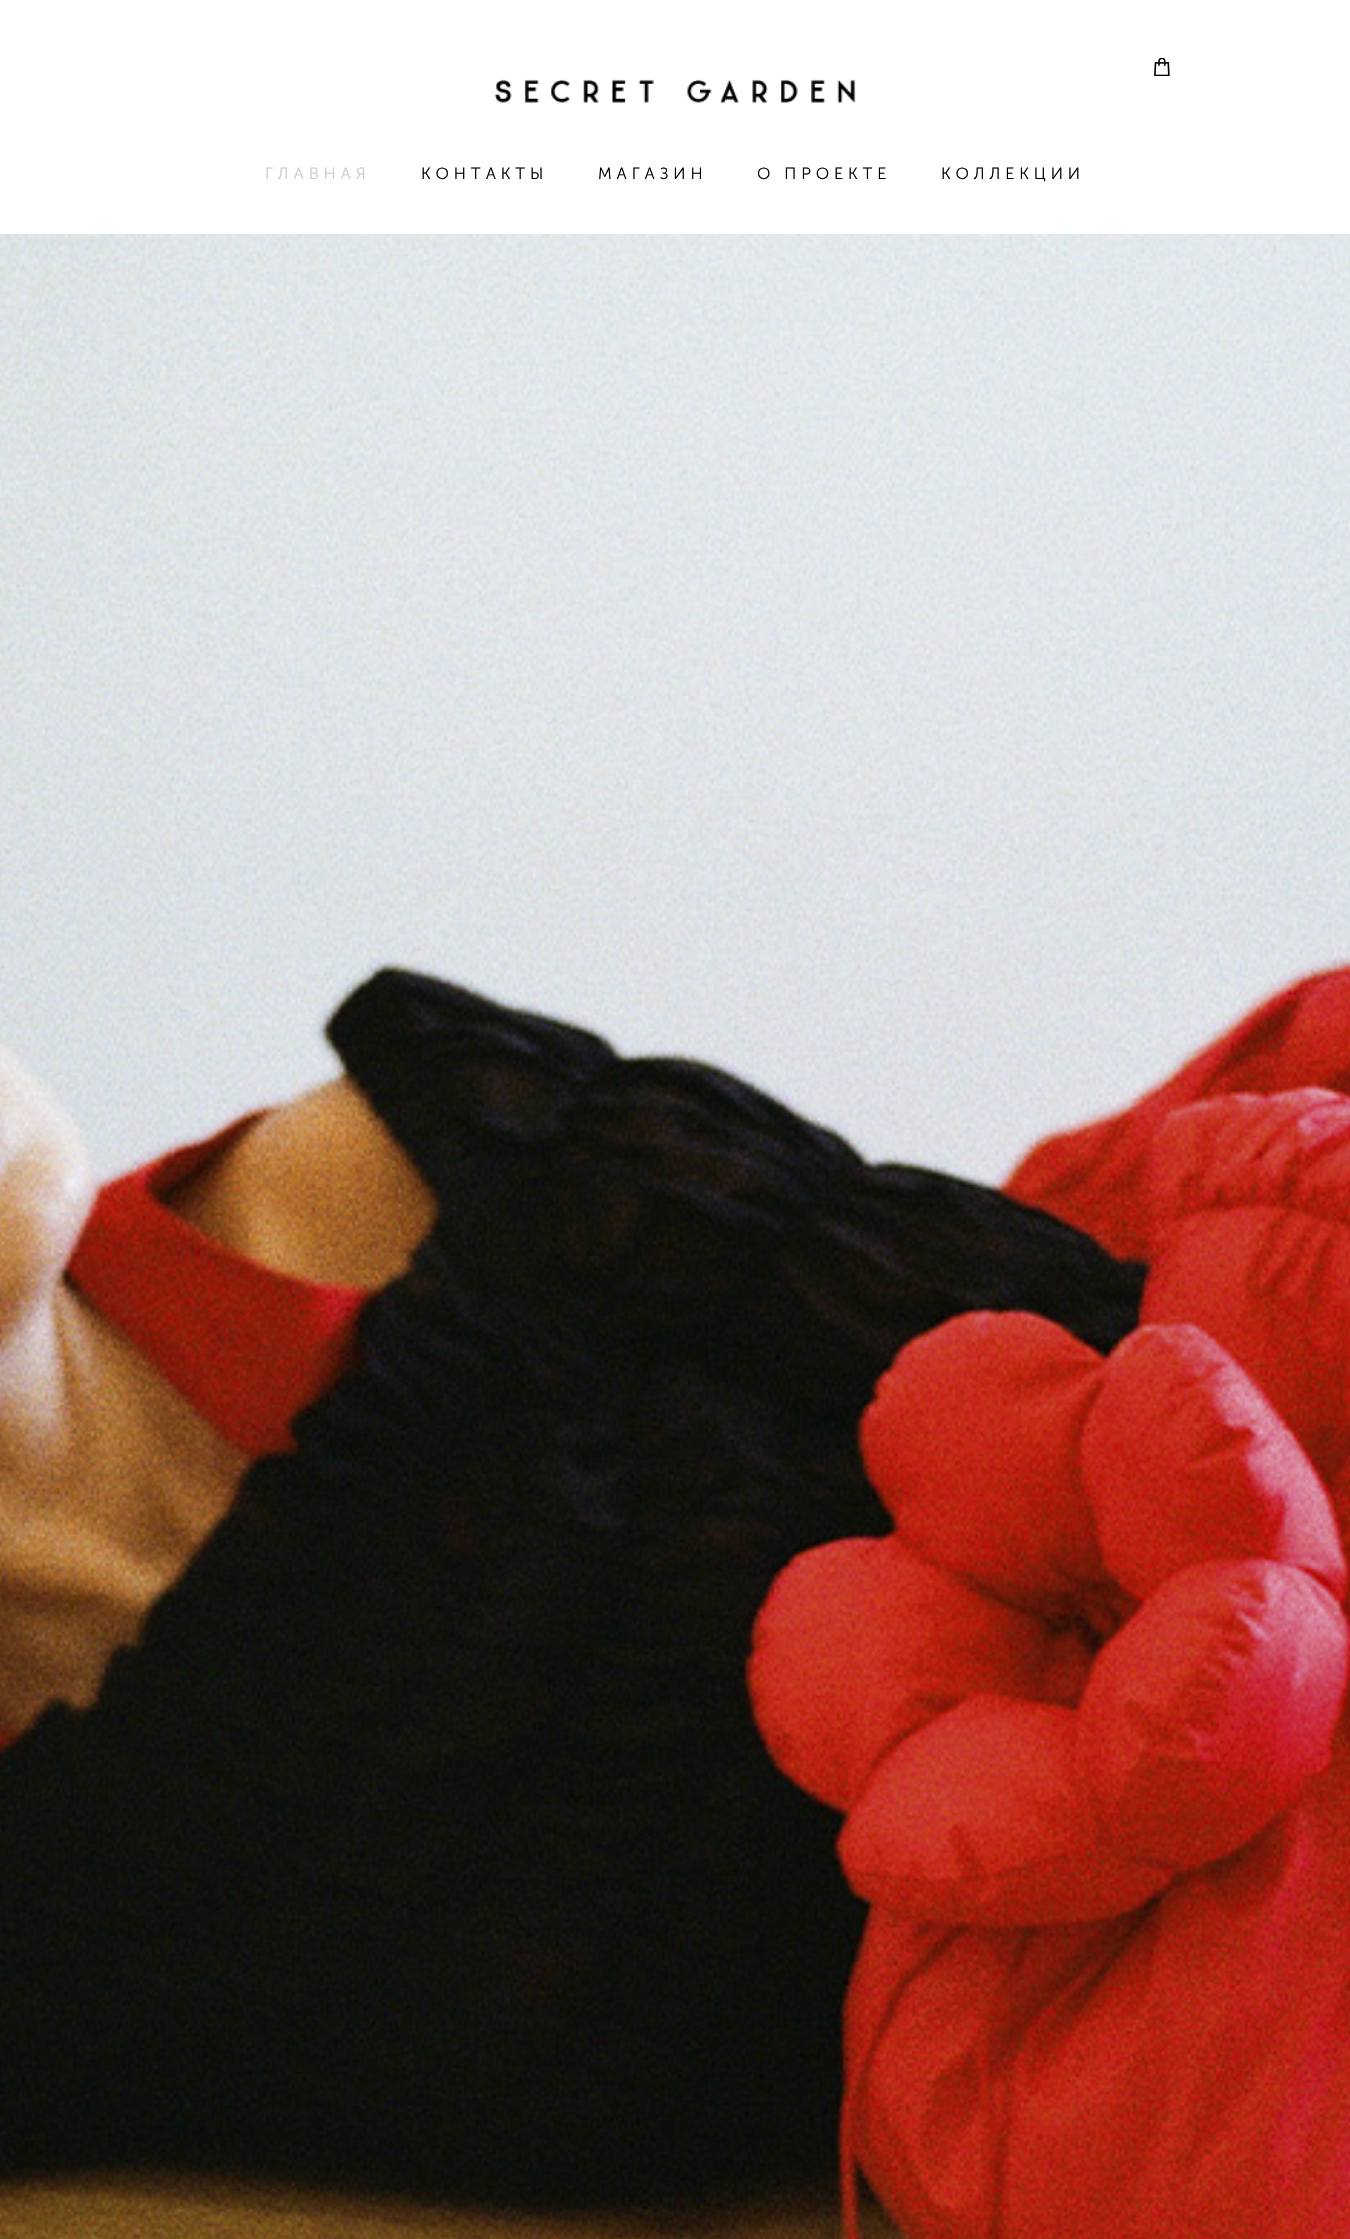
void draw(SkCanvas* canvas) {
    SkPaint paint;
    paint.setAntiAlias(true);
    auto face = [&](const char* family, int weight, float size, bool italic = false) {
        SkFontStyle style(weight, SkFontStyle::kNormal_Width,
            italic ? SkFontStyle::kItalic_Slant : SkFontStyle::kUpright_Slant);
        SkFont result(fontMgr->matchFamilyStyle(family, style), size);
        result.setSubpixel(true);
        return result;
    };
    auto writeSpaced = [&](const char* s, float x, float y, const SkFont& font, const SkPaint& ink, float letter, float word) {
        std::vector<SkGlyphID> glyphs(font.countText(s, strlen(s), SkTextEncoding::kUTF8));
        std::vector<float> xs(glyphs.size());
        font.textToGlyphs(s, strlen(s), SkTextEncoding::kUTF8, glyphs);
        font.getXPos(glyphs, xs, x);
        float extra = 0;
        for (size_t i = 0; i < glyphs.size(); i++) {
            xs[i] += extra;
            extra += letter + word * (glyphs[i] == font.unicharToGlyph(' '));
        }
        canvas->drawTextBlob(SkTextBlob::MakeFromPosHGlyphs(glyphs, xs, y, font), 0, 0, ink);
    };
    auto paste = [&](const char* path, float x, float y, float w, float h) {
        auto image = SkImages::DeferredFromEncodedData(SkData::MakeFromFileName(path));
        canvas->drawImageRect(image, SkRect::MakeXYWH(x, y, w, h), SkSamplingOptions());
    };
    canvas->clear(SK_ColorWHITE);
    paste("pic1.png", 1154, 58, 16, 18);
    paste("pic2.png", 494, 79, 362, 24);
    auto kFont1 = face("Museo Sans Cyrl", 300, 16.25f);
    paint.setColor(SkColorSetRGB(204, 204, 204));
    writeSpaced("ГЛАВНАЯ", 265, 179, kFont1, paint, 4.9f, 0);
    paint.setColor(SK_ColorBLACK);
    writeSpaced("КОНТАКТЫ", 421, 179, kFont1, paint, 4.9f, 0);
    writeSpaced("МАГАЗИН", 598, 179, kFont1, paint, 4.9f, 0);
    writeSpaced("О ПРОЕКТЕ", 757, 179, kFont1, paint, 4.9f, 0);
    writeSpaced("КОЛЛЕКЦИИ", 941, 179, kFont1, paint, 4.9f, 0);
    paste("pic3.png", 0, 234, 1350, 2005);
}
